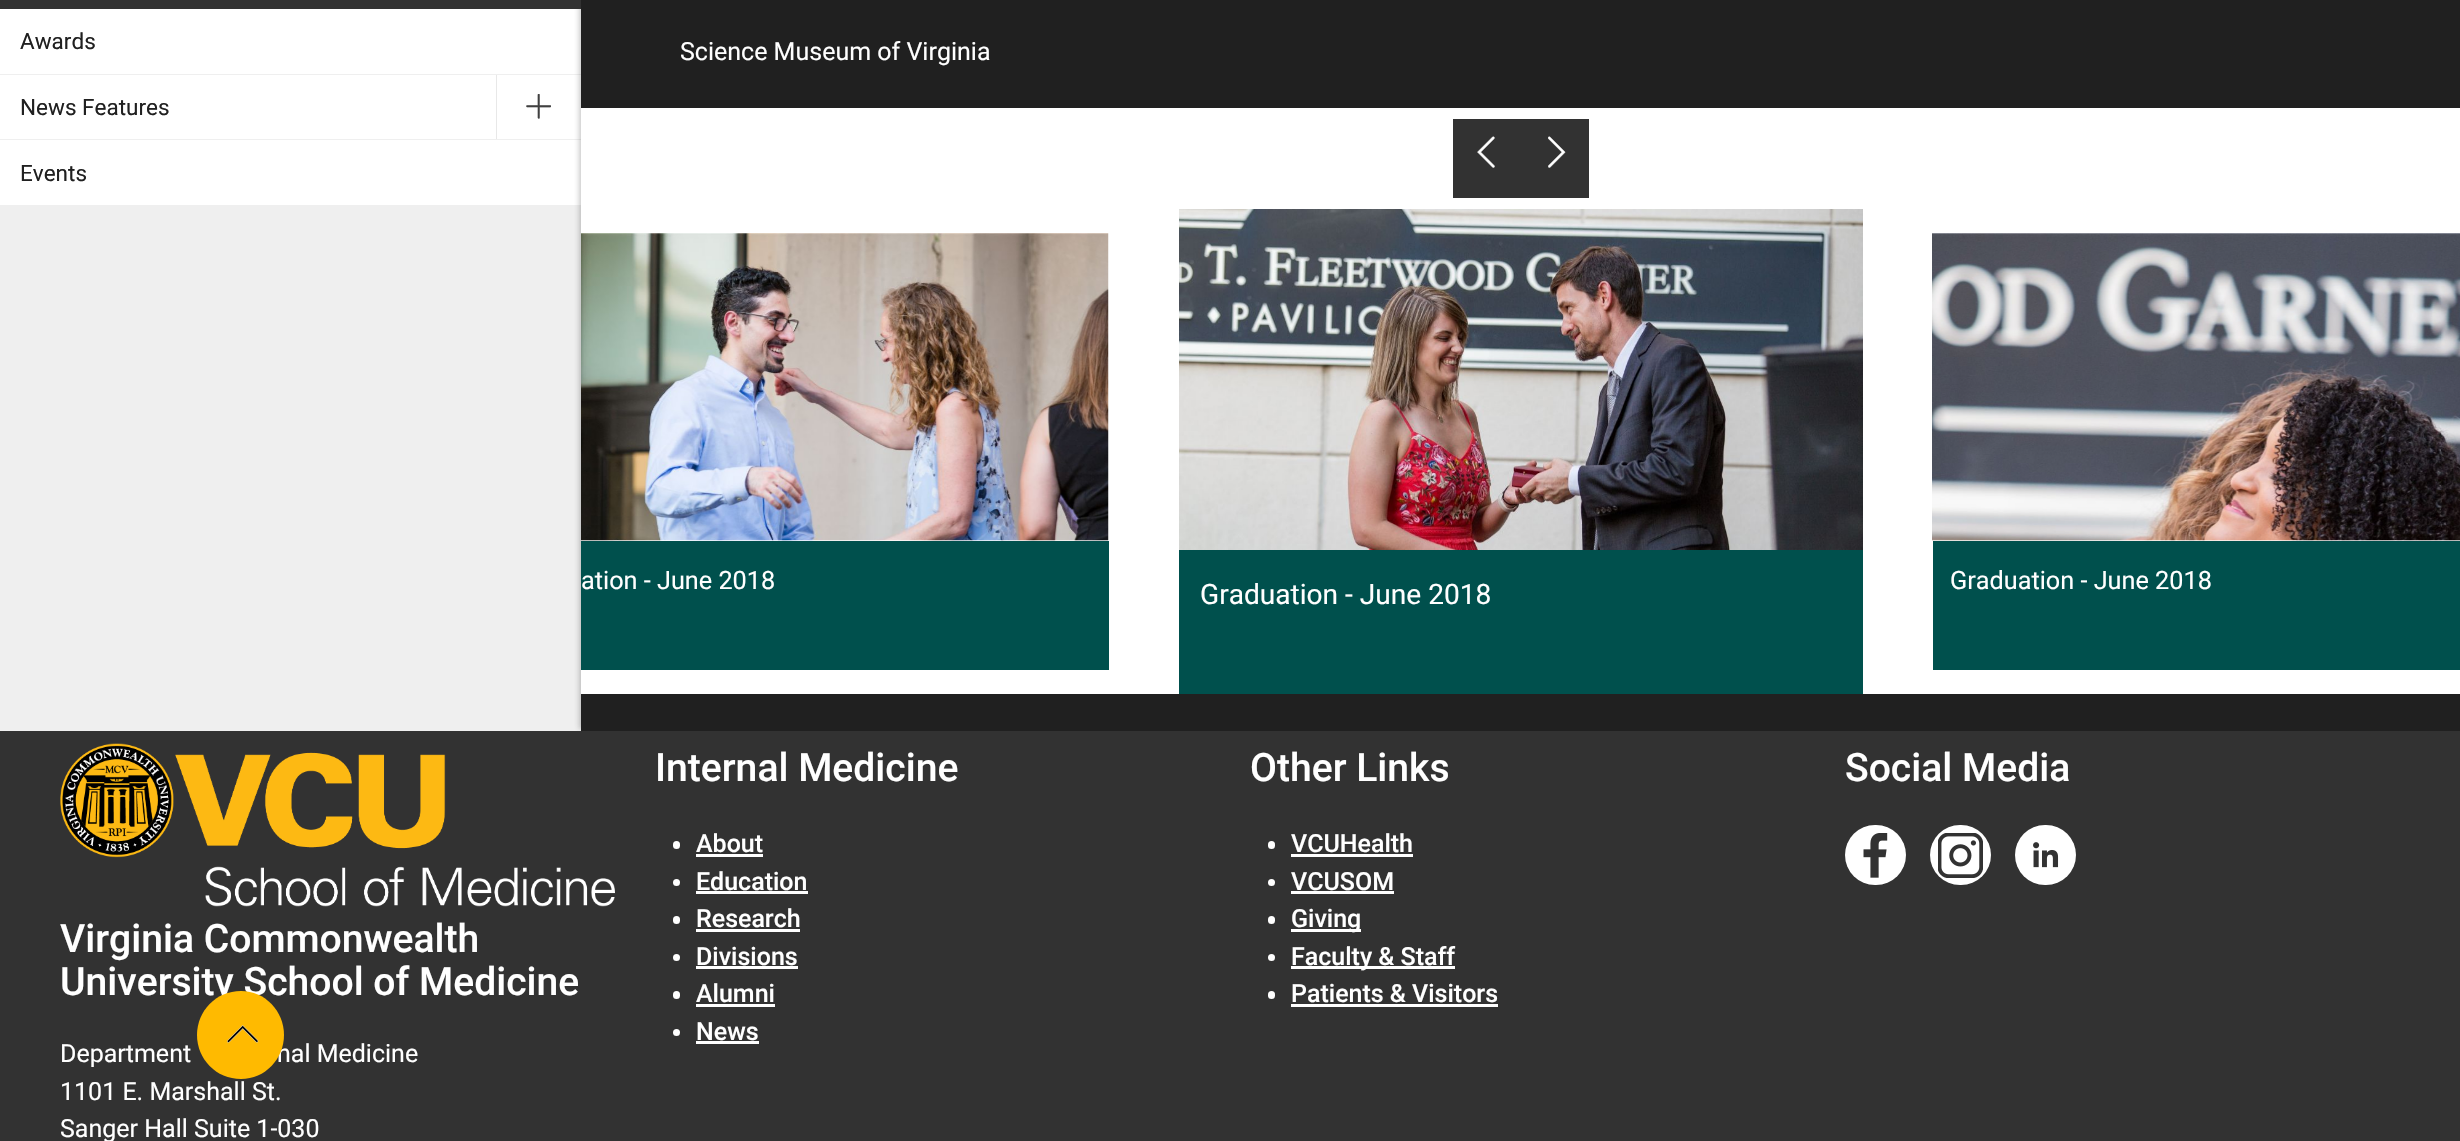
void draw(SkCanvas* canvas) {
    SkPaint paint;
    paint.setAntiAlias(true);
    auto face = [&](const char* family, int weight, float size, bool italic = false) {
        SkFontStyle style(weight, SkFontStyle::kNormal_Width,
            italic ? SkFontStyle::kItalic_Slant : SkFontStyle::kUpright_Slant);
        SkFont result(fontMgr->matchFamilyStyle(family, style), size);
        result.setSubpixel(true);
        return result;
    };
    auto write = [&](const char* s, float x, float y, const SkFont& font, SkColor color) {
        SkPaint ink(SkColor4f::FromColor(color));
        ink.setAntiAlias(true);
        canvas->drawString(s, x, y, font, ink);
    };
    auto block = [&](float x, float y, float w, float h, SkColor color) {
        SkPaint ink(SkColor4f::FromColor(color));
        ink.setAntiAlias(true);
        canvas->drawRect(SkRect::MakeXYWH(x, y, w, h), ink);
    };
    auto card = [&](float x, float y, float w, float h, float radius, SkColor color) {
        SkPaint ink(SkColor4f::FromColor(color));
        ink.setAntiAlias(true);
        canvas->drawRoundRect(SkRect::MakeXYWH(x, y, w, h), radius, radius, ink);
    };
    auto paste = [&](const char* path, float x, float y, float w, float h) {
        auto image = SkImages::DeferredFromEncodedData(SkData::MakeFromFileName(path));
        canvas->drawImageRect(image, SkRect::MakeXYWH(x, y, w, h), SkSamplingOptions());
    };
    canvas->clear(SkColorSetRGB(239, 239, 239));
    block(0, 9, 581, 65, SK_ColorWHITE);
    block(497, 75, 84, 64, SK_ColorWHITE);
    block(0, 140, 581, 65, SK_ColorWHITE);
    paint.setColor(SkColorSetARGB(61, 32, 32, 32));
    paint.setMaskFilter(SkMaskFilter::MakeBlur(kNormal_SkBlurStyle, 2.5f));
    canvas->drawRect(SkRect::MakeXYWH(579, -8, 1874, 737), paint);
    paint.setMaskFilter(nullptr);
    block(0, 0, 581, 9, SkColorSetRGB(50, 50, 50));
    auto kFont1 = face("Roboto", 400, 22.5f);
    write("Awards", 20, 49, kFont1, SkColorSetRGB(32, 32, 32));
    block(0, 75, 496, 64, SK_ColorWHITE);
    write("News Features", 20, 115, kFont1, SkColorSetRGB(32, 32, 32));
    block(496, 75, 1, 64, SkColorSetRGB(232, 232, 232));
    paste("pic1.png", 526, 94, 25, 25);
    write("Events", 20, 181, kFont1, SkColorSetRGB(32, 32, 32));
    block(581, 0, 1879, 731, SkColorSetRGB(32, 32, 32));
    auto kFont2 = face("Roboto", 400, 25);
    write("Science Museum of Virginia", 680, 60, kFont2, SK_ColorWHITE);
    block(581, 108, 1879, 586, SK_ColorWHITE);
    block(1453, 119, 136, 79, SkColorSetRGB(50, 50, 50));
    paste("pic2.png", 1477, 136, 18, 32);
    paste("pic3.png", 1548, 136, 18, 32);
    paste("pic4.png", 581, 233, 528, 308);
    block(581, 541, 528, 129, SkColorSetRGB(0, 80, 77));
    auto kFont3 = face("Roboto", 400, 25.25f);
    write("ation - June 2018", 581, 589, kFont3, SK_ColorWHITE);
    paste("pic5.png", 1932, 233, 528, 308);
    block(1933, 541, 527, 129, SkColorSetRGB(0, 80, 77));
    write("Graduation - June 2018", 1950, 589, kFont3, SK_ColorWHITE);
    paste("pic6.png", 1179, 209, 684, 341);
    block(1179, 550, 684, 144, SkColorSetRGB(0, 80, 77));
    auto kFont4 = face("Roboto", 400, 28.1f);
    write("Graduation - June 2018", 1200, 604, kFont4, SK_ColorWHITE);
    block(0, 731, 2460, 410, SkColorSetRGB(50, 50, 50));
    auto kFont5 = face("Roboto", 500, 39.1f);
    write("University School of Medicine", 60, 995, kFont5, SK_ColorWHITE);
    write("nal Medicine", 277, 1062, kFont2, SK_ColorWHITE);
    paint.setColor(SkColorSetRGB(255, 186, 0));
    canvas->drawPath(SkPathBuilder().moveTo(197, 1035).cubicTo(197, 1011, 216, 991, 241, 991).cubicTo(265, 991, 284, 1011, 284, 1035).cubicTo(284, 1059, 265, 1079, 241, 1079).cubicTo(216, 1079, 197, 1059, 197, 1035).close().detach(), paint);
    paste("pic7.png", 227, 1025, 32, 18);
    write("Internal Medicine", 655, 781, kFont5, SK_ColorWHITE);
    card(673, 841, 7, 8, 3.5f, SK_ColorWHITE);
    auto kFont6 = face("Roboto", 500, 25);
    write("About", 696, 852, kFont6, SK_ColorWHITE);
    block(696, 854, 67, 3, SK_ColorWHITE);
    paint.setColor(SK_ColorWHITE);
    canvas->drawCircle(676.5f, 882.5f, 3.5f, paint);
    write("Education", 696, 890, kFont6, SK_ColorWHITE);
    block(696, 891, 112, 3, SK_ColorWHITE);
    card(673, 916, 7, 8, 3.5f, SK_ColorWHITE);
    write("Research", 696, 927, kFont6, SK_ColorWHITE);
    block(696, 929, 104, 3, SK_ColorWHITE);
    canvas->drawCircle(676.5f, 957.5f, 3.5f, paint);
    write("Divisions", 696, 965, kFont6, SK_ColorWHITE);
    block(696, 966, 102, 3, SK_ColorWHITE);
    card(673, 991, 7, 8, 3.5f, SK_ColorWHITE);
    write("Alumni", 696, 1002, kFont6, SK_ColorWHITE);
    block(696, 1004, 79, 3, SK_ColorWHITE);
    canvas->drawCircle(676.5f, 1032.5f, 3.5f, paint);
    write("News", 696, 1040, kFont6, SK_ColorWHITE);
    block(696, 1041, 63, 3, SK_ColorWHITE);
    write("Other Links", 1250, 781, kFont5, SK_ColorWHITE);
    card(1268, 841, 7, 8, 3.5f, SK_ColorWHITE);
    write("VCUHealth", 1291, 852, kFont6, SK_ColorWHITE);
    block(1291, 854, 122, 3, SK_ColorWHITE);
    canvas->drawCircle(1271.5f, 882.5f, 3.5f, paint);
    write("VCUSOM", 1291, 890, kFont6, SK_ColorWHITE);
    block(1291, 891, 103, 3, SK_ColorWHITE);
    card(1268, 916, 7, 8, 3.5f, SK_ColorWHITE);
    block(1291, 929, 70, 3, SK_ColorWHITE);
    write("Giving", 1291, 927, kFont6, SK_ColorWHITE);
    canvas->drawCircle(1271.5f, 957.5f, 3.5f, paint);
    block(1291, 966, 164, 3, SK_ColorWHITE);
    write("Faculty & Staff", 1291, 965, kFont6, SK_ColorWHITE);
    card(1268, 991, 7, 8, 3.5f, SK_ColorWHITE);
    write("Patients & Visitors", 1291, 1002, kFont6, SK_ColorWHITE);
    block(1291, 1004, 207, 3, SK_ColorWHITE);
    write("Social Media", 1845, 781, kFont5, SK_ColorWHITE);
    card(1845, 825, 61, 60, 30, SK_ColorWHITE);
    paste("pic8.png", 1863, 833, 25, 45);
    card(1930, 825, 61, 60, 30, SK_ColorWHITE);
    paste("pic9.png", 1938, 833, 45, 45);
    card(2015, 825, 61, 60, 30, SK_ColorWHITE);
    paste("pic10.png", 2033, 842, 26, 26);
    paste("pic11.png", 60, 743, 555, 164);
    write("Virginia Commonwealth", 60, 952, kFont5, SK_ColorWHITE);
    write("Department", 60, 1062, kFont2, SK_ColorWHITE);
    write("1101 E. Marshall St.", 60, 1100, kFont2, SK_ColorWHITE);
    write("Sanger Hall Suite 1-030", 60, 1137, kFont2, SK_ColorWHITE);
}
